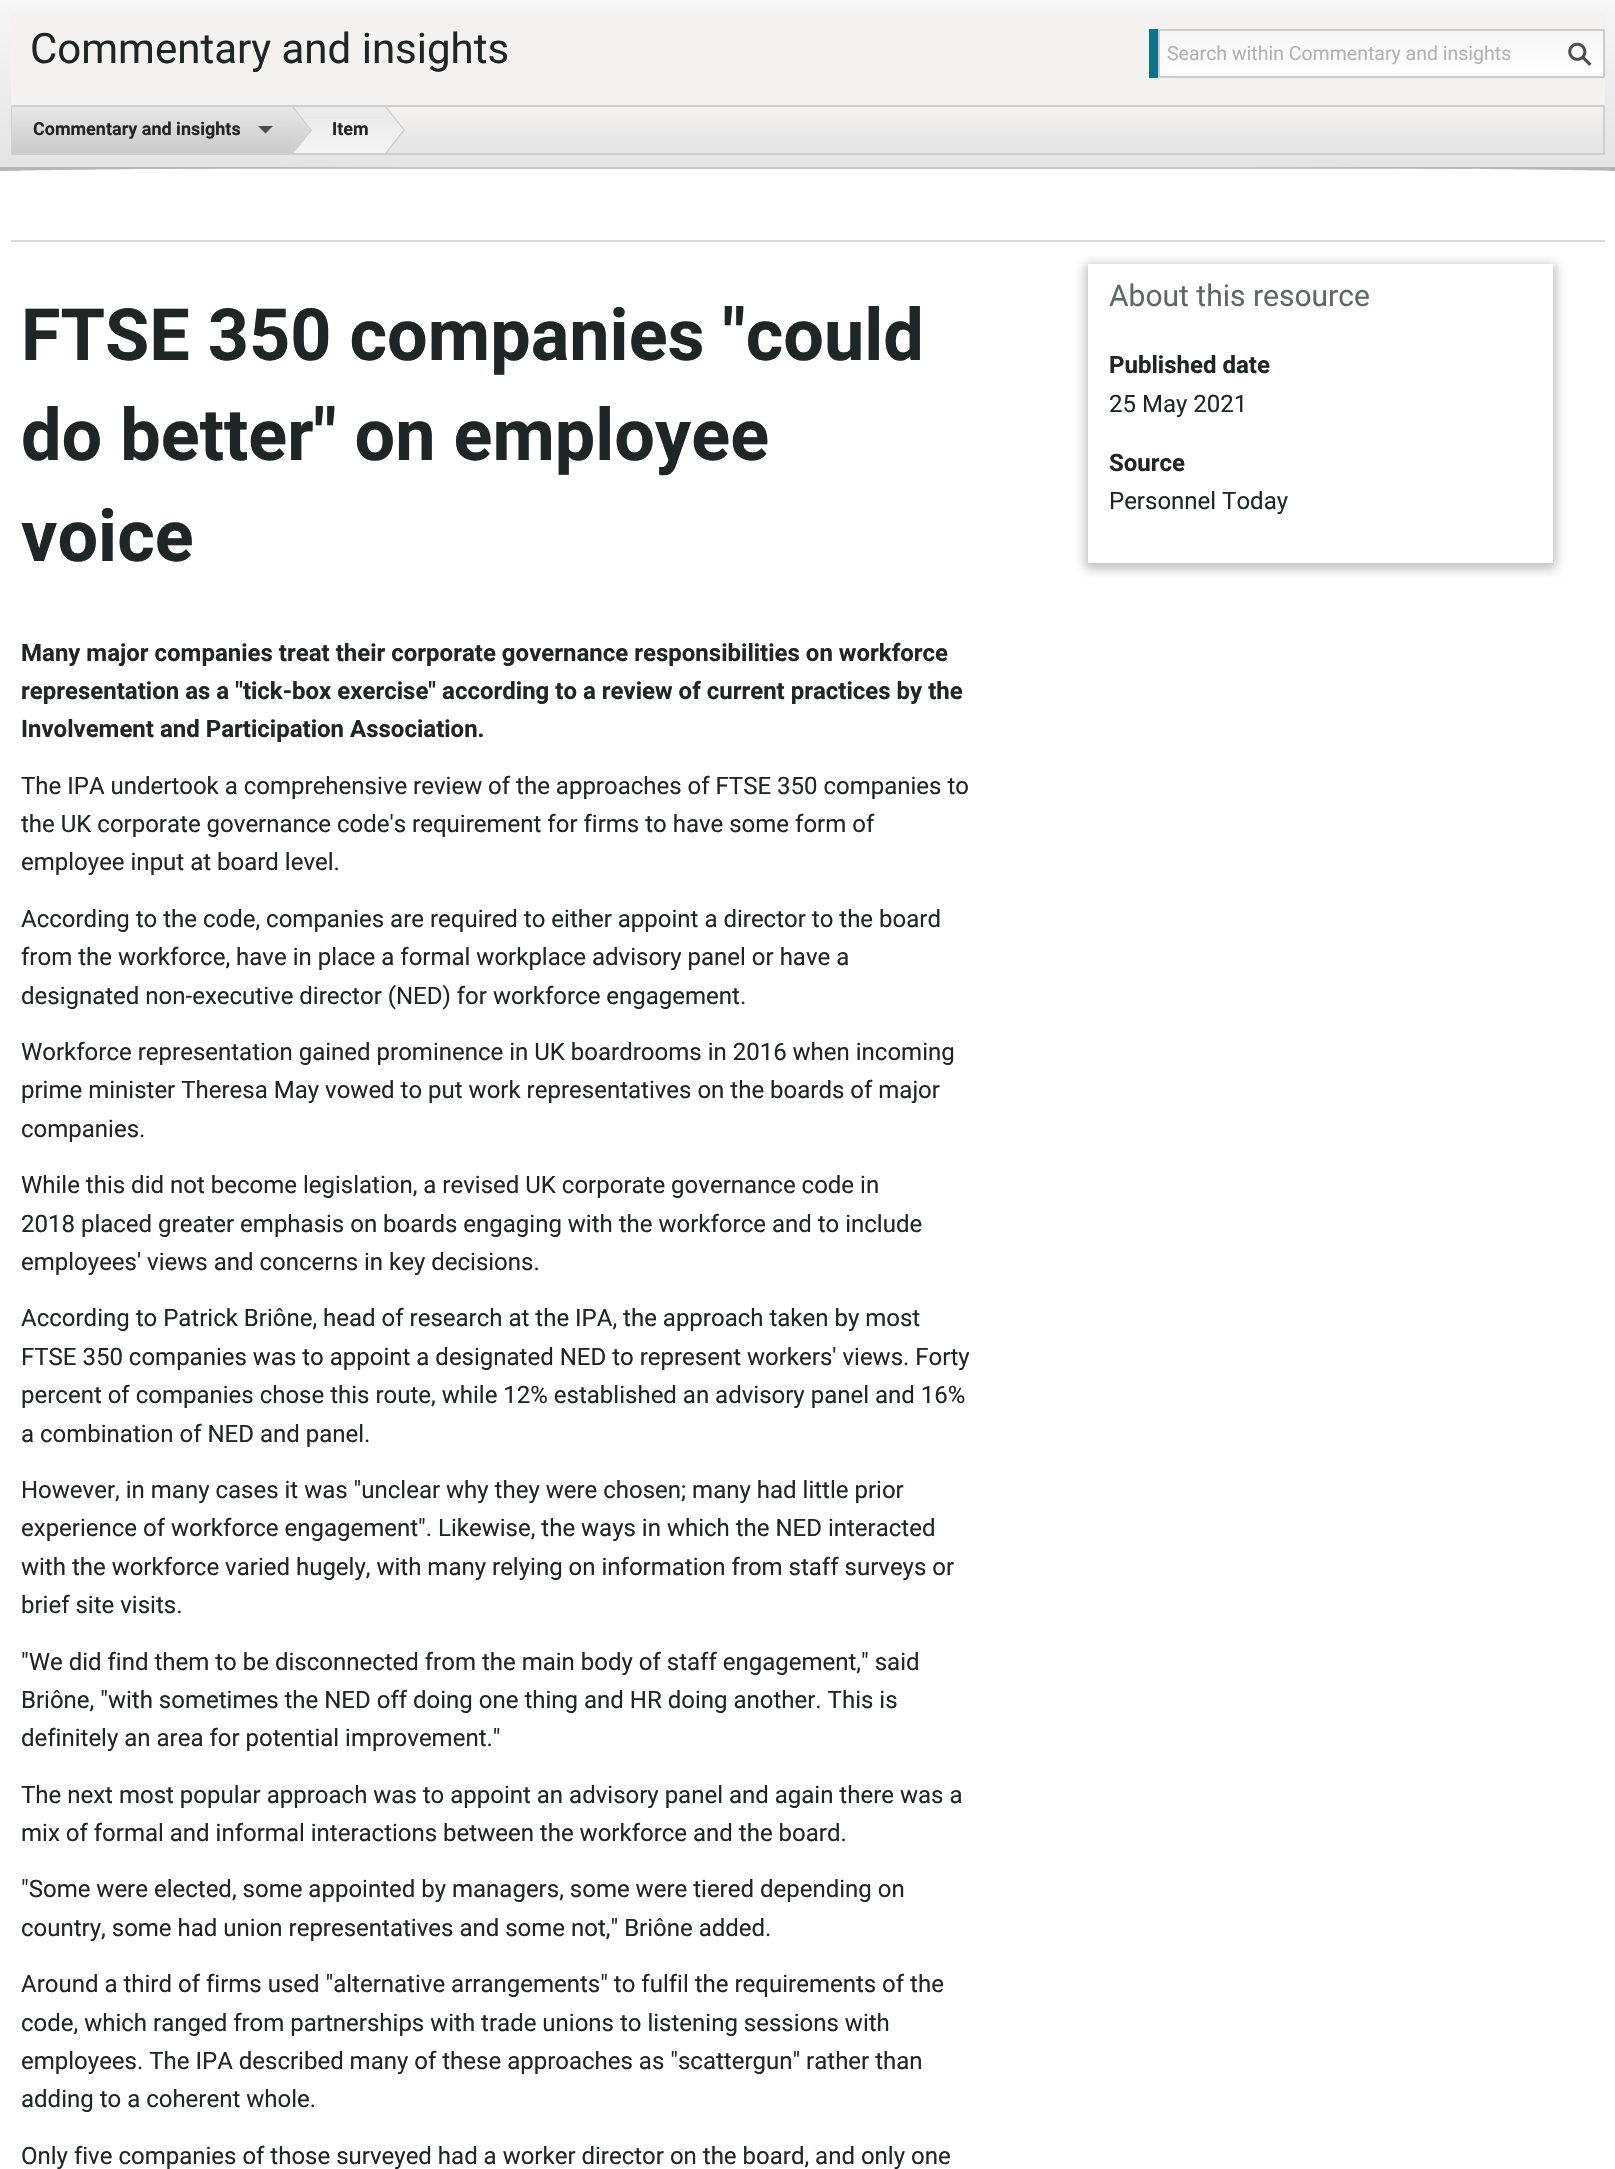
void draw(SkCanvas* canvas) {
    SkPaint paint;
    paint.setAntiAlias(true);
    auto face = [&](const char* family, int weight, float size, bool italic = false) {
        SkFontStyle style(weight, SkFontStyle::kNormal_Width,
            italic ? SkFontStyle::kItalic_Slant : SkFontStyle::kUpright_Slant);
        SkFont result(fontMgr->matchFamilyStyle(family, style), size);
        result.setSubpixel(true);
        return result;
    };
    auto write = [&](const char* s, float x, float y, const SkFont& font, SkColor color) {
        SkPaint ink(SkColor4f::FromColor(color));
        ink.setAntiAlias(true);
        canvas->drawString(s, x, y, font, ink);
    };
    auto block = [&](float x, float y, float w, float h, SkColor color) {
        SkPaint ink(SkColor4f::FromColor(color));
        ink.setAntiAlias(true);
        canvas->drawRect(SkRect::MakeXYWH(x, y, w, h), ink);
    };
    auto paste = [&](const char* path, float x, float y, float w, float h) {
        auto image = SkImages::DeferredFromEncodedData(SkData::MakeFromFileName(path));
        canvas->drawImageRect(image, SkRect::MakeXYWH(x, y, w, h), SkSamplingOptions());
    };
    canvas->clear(SK_ColorWHITE);
    {
        const SkColor colors[] = {SkColorSetRGB(246, 246, 246), SkColorSetRGB(228, 228, 228)};
        const float stops[] = {0, 1};
        const SkPoint ends[] = {{808, 0}, {808, 167}};
        paint.setShader(SkGradientShader::MakeLinear(ends, colors, stops, 2, SkTileMode::kClamp));
        paint.setAlpha(255);
    }
    canvas->drawRect(SkRect::MakeXYWH(0, 0, 1615, 167), paint);
    block(150, 167, 1322, 2, SkColorSetRGB(199, 199, 199));
    block(11, 12, 1594, 93, SkColorSetRGB(243, 242, 240));
    auto kFont1 = face("Roboto", 400, 42);
    write("Commentary and insights", 30, 63, kFont1, SkColorSetRGB(32, 37, 38));
    {
        const SkColor colors[] = {SkColorSetRGB(245, 245, 245), SK_ColorWHITE};
        const float stops[] = {0, 1};
        const SkPoint ends[] = {{1377, 28}, {1377, 78}};
        paint.setShader(SkGradientShader::MakeLinear(ends, colors, stops, 2, SkTileMode::kClamp));
        paint.setAlpha(255);
    }
    canvas->drawRect(SkRect::MakeXYWH(1160, 31, 443, 45), paint);
    block(1149, 29, 9, 49, SkColorSetRGB(14, 114, 139));
    paint.setStyle(SkPaint::kStroke_Style);
    paint.setStrokeWidth(2);
    paint.setShader(nullptr);
    paint.setColor(SkColorSetRGB(204, 204, 204));
    canvas->drawRect(SkRect::MakeXYWH(1159, 30, 445, 47), paint);
    auto kFont2 = face("Roboto", 400, 19.5f);
    write("Search within Commentary and insights", 1167, 60, kFont2, SkColorSetRGB(178, 178, 178));
    paste("pic1.png", 1568, 42, 24, 24);
    paint.setStyle(SkPaint::kFill_Style);
    {
        const SkColor colors[] = {SkColorSetRGB(243, 242, 240), SkColorSetRGB(228, 228, 228)};
        const float stops[] = {0, 1};
        const SkPoint ends[] = {{808, 106}, {808, 153}};
        paint.setShader(SkGradientShader::MakeLinear(ends, colors, stops, 2, SkTileMode::kClamp));
        paint.setAlpha(255);
    }
    canvas->drawRect(SkRect::MakeXYWH(385, 107, 1218, 29), paint);
    paint.setStyle(SkPaint::kStroke_Style);
    paint.setShader(nullptr);
    paint.setColor(SkColorSetRGB(207, 207, 207));
    canvas->drawRect(SkRect::MakeXYWH(12, 106, 1592, 48), paint);
    paint.setStyle(SkPaint::kFill_Style);
    {
        const SkColor colors[] = {SkColorSetRGB(232, 232, 232), SkColorSetRGB(202, 202, 202)};
        const float stops[] = {0, 1};
        const SkPoint ends[] = {{152, 106}, {152, 153}};
        paint.setShader(SkGradientShader::MakeLinear(ends, colors, stops, 2, SkTileMode::kClamp));
        paint.setAlpha(255);
    }
    canvas->drawRect(SkRect::MakeXYWH(12, 107, 279, 46), paint);
    auto kFont3 = face("Roboto", 700, 18);
    write("Commentary and insights", 33, 135, kFont3, SkColorSetRGB(32, 37, 38));
    paint.setShader(nullptr);
    paint.setColor(SkColorSetRGB(77, 77, 77));
    canvas->drawPath(SkPathBuilder().moveTo(258, 126).lineTo(265.5f, 133.5f).lineTo(273, 126).close().detach(), paint);
    {
        const SkColor colors[] = {SkColorSetRGB(232, 232, 232), SkColorSetRGB(245, 245, 245)};
        const float stops[] = {0, 1};
        const SkPoint ends[] = {{338, 107}, {338, 153}};
        paint.setShader(SkGradientShader::MakeLinear(ends, colors, stops, 2, SkTileMode::kClamp));
        paint.setAlpha(255);
    }
    canvas->drawRect(SkRect::MakeXYWH(292, 119, 92, 34), paint);
    canvas->save();
    canvas->clipRect(SkRect::MakeXYWH(291, 107, 21, 46));
    paint.setShader(nullptr);
    paint.setColor(SkColorSetRGB(207, 207, 207));
    canvas->drawPath(SkPathBuilder(SkPathFillType::kEvenOdd).moveTo(292, 105).lineTo(293, 106).lineTo(311, 129).lineTo(312, 130).lineTo(293, 154).lineTo(292, 155).lineTo(291, 154).lineTo(290, 153).lineTo(290, 107).lineTo(291, 105).close().moveTo(292, 153).lineTo(310, 130).lineTo(292, 107).close().detach(), paint);
    {
        const SkColor colors[] = {SkColorSetRGB(202, 202, 202), SkColorSetRGB(232, 232, 232)};
        const float stops[] = {0, 1};
        const SkPoint ends[] = {{259, 155}, {259, 105}};
        paint.setShader(SkGradientShader::MakeLinear(ends, colors, stops, 2, SkTileMode::kClamp));
        paint.setAlpha(255);
    }
    canvas->drawPath(SkPathBuilder(SkPathFillType::kEvenOdd).moveTo(248, 107).lineTo(292, 107).lineTo(310, 130).lineTo(292, 153).lineTo(248, 153).close().detach(), paint);
    canvas->restore();
    write("Item", 332, 135, kFont3, SkColorSetRGB(32, 37, 38));
    canvas->save();
    canvas->clipRect(SkRect::MakeXYWH(384, 107, 21, 46));
    paint.setShader(nullptr);
    paint.setColor(SkColorSetRGB(207, 207, 207));
    canvas->drawPath(SkPathBuilder(SkPathFillType::kEvenOdd).moveTo(385, 105).lineTo(386, 106).lineTo(404, 129).lineTo(405, 130).lineTo(386, 154).lineTo(385, 155).lineTo(384, 154).lineTo(383, 153).lineTo(383, 107).lineTo(384, 105).close().moveTo(385, 153).lineTo(403, 130).lineTo(385, 107).close().detach(), paint);
    {
        const SkColor colors[] = {SkColorSetRGB(245, 245, 245), SkColorSetRGB(232, 232, 232)};
        const float stops[] = {0, 1};
        const SkPoint ends[] = {{372, 154}, {372, 107}};
        paint.setShader(SkGradientShader::MakeLinear(ends, colors, stops, 2, SkTileMode::kClamp));
        paint.setAlpha(255);
    }
    canvas->drawPath(SkPathBuilder(SkPathFillType::kEvenOdd).moveTo(341, 107).lineTo(385, 107).lineTo(403, 130).lineTo(385, 153).lineTo(341, 153).close().detach(), paint);
    canvas->restore();
    canvas->save();
    canvas->clipRect(SkRect::MakeXYWH(0, 167, 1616, 16));
    paint.setShader(nullptr);
    paint.setColor(SkColorSetRGB(181, 181, 181));
    canvas->drawPath(SkPathBuilder(SkPathFillType::kEvenOdd).moveTo(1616, 171).lineTo(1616, 154).lineTo(0, 154).lineTo(0, 171).cubicTo(0, 171, 246, 166, 815, 166).cubicTo(1384, 166, 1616, 171, 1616, 171).close().detach(), paint);
    canvas->restore();
    block(11, 240, 1594, 2, SkColorSetRGB(217, 217, 217));
    auto kFont4 = face("Roboto", 700, 72);
    write("FTSE 350 companies \"could", 21, 360, kFont4, SkColorSetRGB(32, 37, 38));
    write("do better\" on employee", 21, 460, kFont4, SkColorSetRGB(32, 37, 38));
    write("voice", 21, 561, kFont4, SkColorSetRGB(32, 37, 38));
    auto kFont5 = face("Roboto", 700, 24);
    write("Many major companies treat their corporate governance responsibilities on workforce", 21, 661, kFont5, SkColorSetRGB(32, 37, 38));
    write("representation as a \"tick-box exercise\" according to a review of current practices by the", 21, 699, kFont5, SkColorSetRGB(32, 37, 38));
    write("Involvement and Participation Association.", 21, 737, kFont5, SkColorSetRGB(32, 37, 38));
    auto kFont6 = face("Roboto", 400, 24);
    write("The IPA undertook a comprehensive review of the approaches of FTSE 350 companies to", 21, 794, kFont6, SkColorSetRGB(32, 37, 38));
    write("the UK corporate governance code's requirement for firms to have some form of", 21, 832, kFont6, SkColorSetRGB(32, 37, 38));
    write("employee input at board level.", 21, 870, kFont6, SkColorSetRGB(32, 37, 38));
    write("According to the code, companies are required to either appoint a director to the board", 21, 927, kFont6, SkColorSetRGB(32, 37, 38));
    write("from the workforce, have in place a formal workplace advisory panel or have a", 21, 965, kFont6, SkColorSetRGB(32, 37, 38));
    write("designated non-executive director (NED) for workforce engagement.", 21, 1004, kFont6, SkColorSetRGB(32, 37, 38));
    write("Workforce representation gained prominence in UK boardrooms in 2016 when incoming", 21, 1060, kFont6, SkColorSetRGB(32, 37, 38));
    write("prime minister Theresa May vowed to put work representatives on the boards of major", 21, 1098, kFont6, SkColorSetRGB(32, 37, 38));
    write("companies.", 21, 1137, kFont6, SkColorSetRGB(32, 37, 38));
    write("While this did not become legislation, a revised UK corporate governance code in", 21, 1193, kFont6, SkColorSetRGB(32, 37, 38));
    write("2018 placed greater emphasis on boards engaging with the workforce and to include", 21, 1232, kFont6, SkColorSetRGB(32, 37, 38));
    write("employees' views and concerns in key decisions.", 21, 1270, kFont6, SkColorSetRGB(32, 37, 38));
    write("According to Patrick Briône, head of research at the IPA, the approach taken by most", 21, 1326, kFont6, SkColorSetRGB(32, 37, 38));
    write("FTSE 350 companies was to appoint a designated NED to represent workers' views. Forty", 21, 1365, kFont6, SkColorSetRGB(32, 37, 38));
    write("percent of companies chose this route, while 12% established an advisory panel and 16%", 21, 1403, kFont6, SkColorSetRGB(32, 37, 38));
    write("a combination of NED and panel.", 21, 1442, kFont6, SkColorSetRGB(32, 37, 38));
    write("However, in many cases it was \"unclear why they were chosen; many had little prior", 21, 1498, kFont6, SkColorSetRGB(32, 37, 38));
    write("experience of workforce engagement\". Likewise, the ways in which the NED interacted", 21, 1536, kFont6, SkColorSetRGB(32, 37, 38));
    write("with the workforce varied hugely, with many relying on information from staff surveys or", 21, 1575, kFont6, SkColorSetRGB(32, 37, 38));
    write("brief site visits.", 21, 1613, kFont6, SkColorSetRGB(32, 37, 38));
    write("\"We did find them to be disconnected from the main body of staff engagement,\" said", 21, 1670, kFont6, SkColorSetRGB(32, 37, 38));
    write("Briône, \"with sometimes the NED off doing one thing and HR doing another. This is", 21, 1708, kFont6, SkColorSetRGB(32, 37, 38));
    write("definitely an area for potential improvement.\"", 21, 1746, kFont6, SkColorSetRGB(32, 37, 38));
    write("The next most popular approach was to appoint an advisory panel and again there was a", 21, 1803, kFont6, SkColorSetRGB(32, 37, 38));
    write("mix of formal and informal interactions between the workforce and the board.", 21, 1841, kFont6, SkColorSetRGB(32, 37, 38));
    write("\"Some were elected, some appointed by managers, some were tiered depending on", 21, 1897, kFont6, SkColorSetRGB(32, 37, 38));
    write("country, some had union representatives and some not,\" Briône added.", 21, 1936, kFont6, SkColorSetRGB(32, 37, 38));
    write("Around a third of firms used \"alternative arrangements\" to fulfil the requirements of the", 21, 1992, kFont6, SkColorSetRGB(32, 37, 38));
    write("code, which ranged from partnerships with trade unions to listening sessions with", 21, 2031, kFont6, SkColorSetRGB(32, 37, 38));
    write("employees. The IPA described many of these approaches as \"scattergun\" rather than", 21, 2069, kFont6, SkColorSetRGB(32, 37, 38));
    write("adding to a coherent whole.", 21, 2107, kFont6, SkColorSetRGB(32, 37, 38));
    write("Only five companies of those surveyed had a worker director on the board, and only one", 21, 2164, kFont6, SkColorSetRGB(32, 37, 38));
    paint.setColor(SkColorSetRGB(191, 191, 191));
    paint.setMaskFilter(SkMaskFilter::MakeBlur(kNormal_SkBlurStyle, 5));
    canvas->drawRect(SkRect::MakeXYWH(1085, 264, 471, 305), paint);
    paint.setMaskFilter(nullptr);
    block(1088, 264, 465, 299, SK_ColorWHITE);
    auto kFont7 = face("Roboto", 400, 30);
    write("About this resource", 1109, 306, kFont7, SkColorSetRGB(96, 102, 103));
    write("Published date", 1109, 373, kFont5, SkColorSetRGB(32, 37, 38));
    write("25 May 2021", 1109, 412, kFont6, SkColorSetRGB(32, 37, 38));
    write("Source", 1109, 471, kFont5, SkColorSetRGB(32, 37, 38));
    write("Personnel Today", 1109, 509, kFont6, SkColorSetRGB(32, 37, 38));
}
